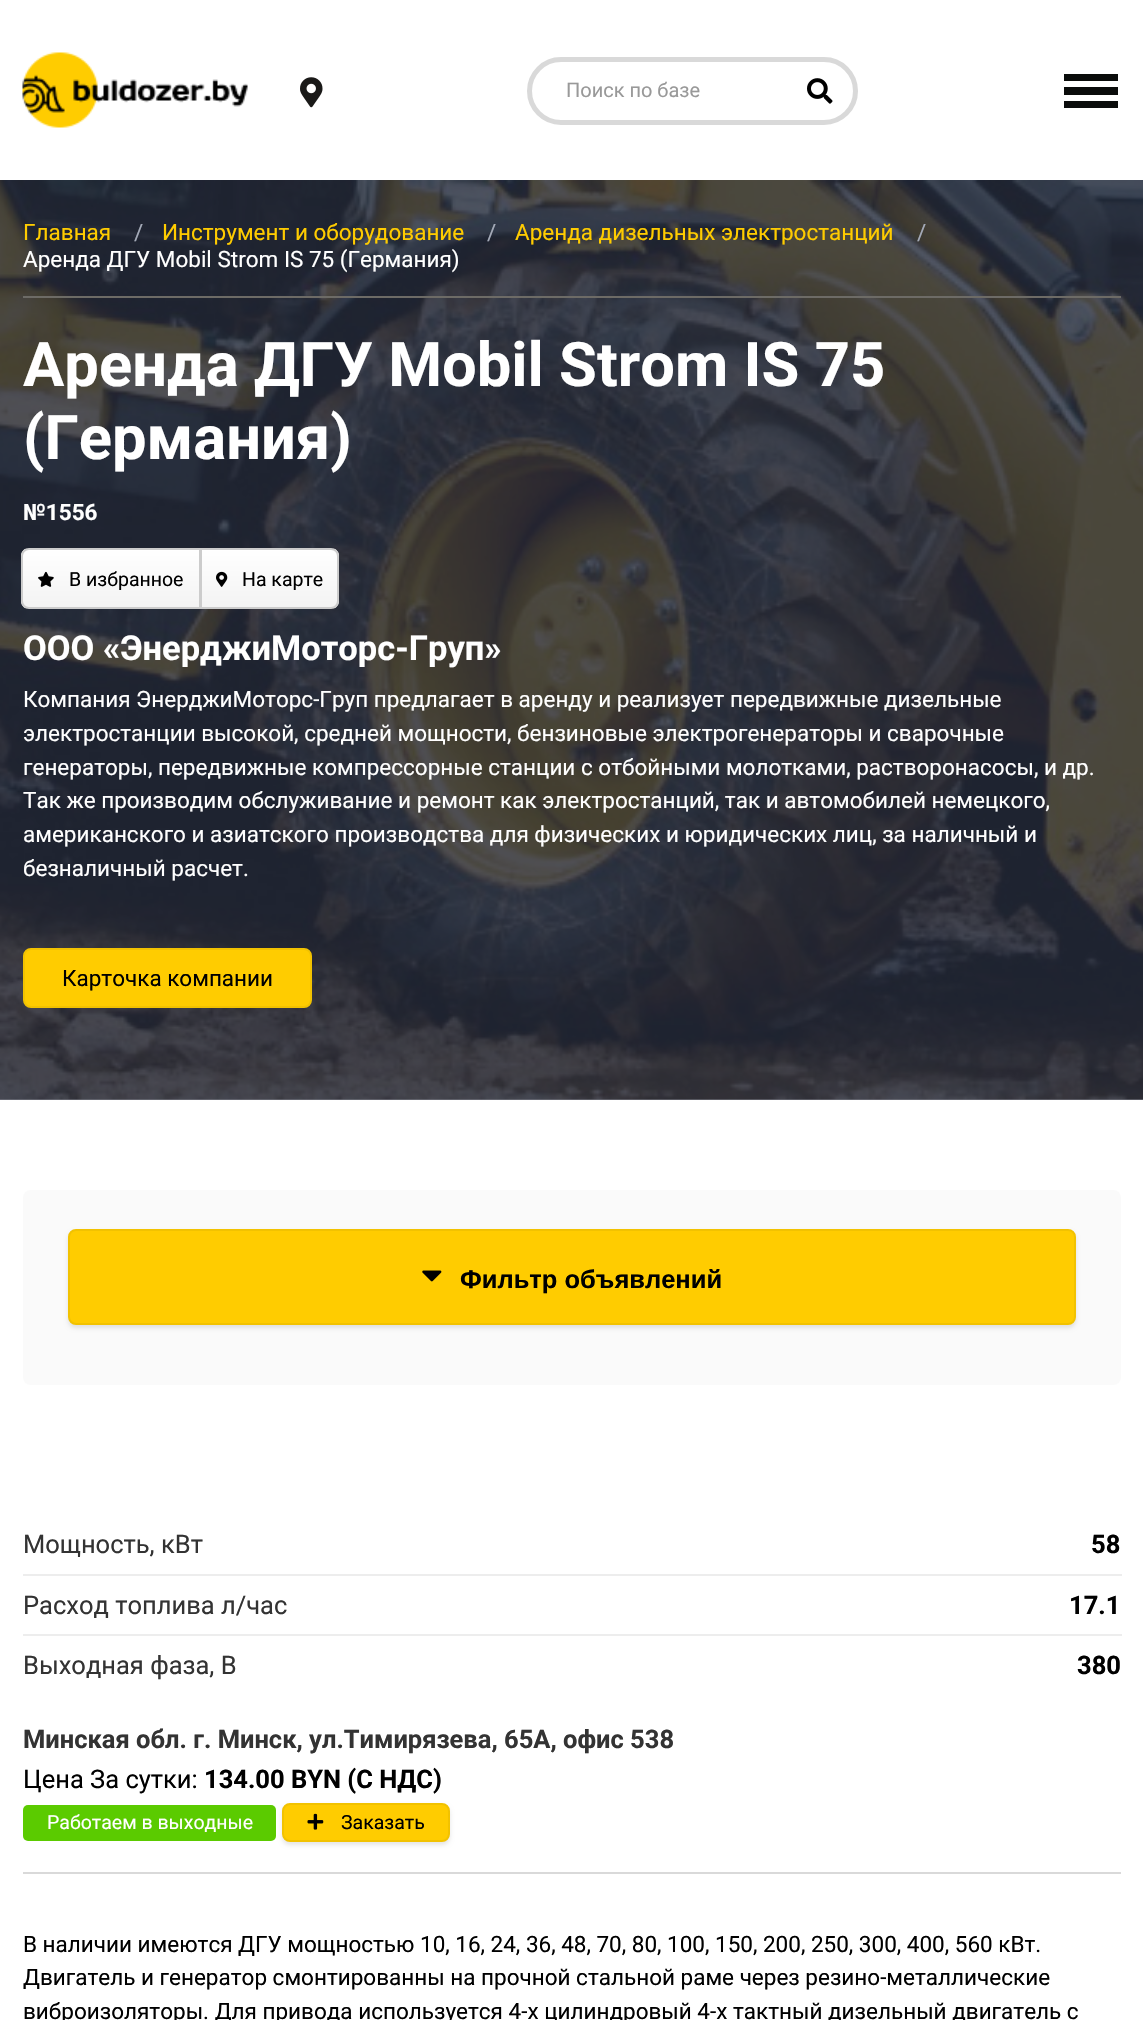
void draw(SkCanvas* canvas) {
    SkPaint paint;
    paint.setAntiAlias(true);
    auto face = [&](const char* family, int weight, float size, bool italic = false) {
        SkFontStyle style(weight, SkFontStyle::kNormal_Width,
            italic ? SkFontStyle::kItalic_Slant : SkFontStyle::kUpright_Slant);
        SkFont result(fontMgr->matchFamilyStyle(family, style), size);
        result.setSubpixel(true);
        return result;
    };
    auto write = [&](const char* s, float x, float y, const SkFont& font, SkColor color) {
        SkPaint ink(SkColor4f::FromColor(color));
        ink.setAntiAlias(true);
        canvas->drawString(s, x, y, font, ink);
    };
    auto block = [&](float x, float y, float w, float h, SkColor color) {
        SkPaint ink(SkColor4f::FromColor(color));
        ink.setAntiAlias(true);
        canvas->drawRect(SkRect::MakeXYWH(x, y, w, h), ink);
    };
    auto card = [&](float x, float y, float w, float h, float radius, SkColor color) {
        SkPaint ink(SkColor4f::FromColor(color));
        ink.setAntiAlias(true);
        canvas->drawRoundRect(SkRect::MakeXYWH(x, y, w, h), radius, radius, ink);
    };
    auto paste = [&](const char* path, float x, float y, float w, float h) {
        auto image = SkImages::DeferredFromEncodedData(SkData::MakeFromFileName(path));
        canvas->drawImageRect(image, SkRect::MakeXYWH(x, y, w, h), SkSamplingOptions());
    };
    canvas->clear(SK_ColorWHITE);
    block(0, 1099, 1143, 1, SkColorSetRGB(125, 128, 138));
    paste("pic1.png", 22, 52, 226, 76);
    paste("pic2.png", 300, 77, 23, 31);
    paint.setStyle(SkPaint::kStroke_Style);
    paint.setStrokeWidth(5);
    paint.setColor(SkColorSetRGB(217, 217, 217));
    canvas->drawRoundRect(SkRect::MakeXYWH(529.5f, 59.5f, 326, 63), 31.5f, 31.5f, paint);
    auto kFont1 = face("Roboto", 400, 20);
    write("Поиск по базе", 566, 97, kFont1, SkColorSetRGB(153, 153, 153));
    paste("pic3.png", 807, 78, 26, 26);
    block(1064, 74, 54, 7, SkColorSetRGB(10, 12, 11));
    block(1064, 87, 54, 8, SkColorSetRGB(10, 12, 11));
    block(1064, 101, 54, 7, SkColorSetRGB(10, 12, 11));
    paste("pic4.png", 0, 180, 1143, 920);
    block(23, 296, 1098, 2, SkColorSetRGB(109, 107, 102));
    auto kFont2 = face("Roboto", 400, 22.5f);
    write("Главная", 23, 240, kFont2, SkColorSetRGB(255, 204, 0));
    write("/", 134, 240, kFont2, SkColorSetRGB(164, 170, 184));
    write("Инструмент и оборудование", 162, 240, kFont2, SkColorSetRGB(255, 204, 0));
    write("/", 487, 240, kFont2, SkColorSetRGB(164, 170, 184));
    write("Аренда дизельных электростанций", 515, 240, kFont2, SkColorSetRGB(255, 204, 0));
    write("/", 917, 240, kFont2, SkColorSetRGB(164, 170, 184));
    write("Аренда ДГУ Mobil Strom IS 75 (Германия)", 23, 267, kFont2, SK_ColorWHITE);
    auto kFont3 = face("Roboto", 700, 61.5f);
    write("Аренда ДГУ Mobil Strom IS 75", 23, 386, kFont3, SK_ColorWHITE);
    write("(Германия)", 23, 459, kFont3, SK_ColorWHITE);
    auto kFont4 = face("Roboto", 700, 22.5f);
    write("№1556", 23, 520, kFont4, SK_ColorWHITE);
    canvas->save();
    canvas->clipPath(SkPathBuilder().moveTo(29, 548).lineTo(201, 548).lineTo(201, 609).lineTo(29, 609).cubicTo(24.5f, 609, 21, 605.5f, 21, 601).lineTo(21, 556).cubicTo(21, 551.5f, 24.5f, 548, 29, 548).close().detach(), true);
    paint.setStyle(SkPaint::kFill_Style);
    {
        const SkColor colors[] = {SkColorSetRGB(243, 243, 243), SK_ColorWHITE};
        const float stops[] = {0, 1};
        const SkPoint ends[] = {{111, 608}, {111, 549}};
        paint.setShader(SkGradientShader::MakeLinear(ends, colors, stops, 2, SkTileMode::kClamp));
        paint.setAlpha(255);
    }
    canvas->drawRect(SkRect::MakeXYWH(21, 549, 178, 59), paint);
    canvas->restore();
    paint.setStyle(SkPaint::kStroke_Style);
    paint.setStrokeWidth(2);
    paint.setShader(nullptr);
    paint.setColor(SkColorSetRGB(204, 204, 204));
    canvas->drawPath(SkPathBuilder().moveTo(29, 549).lineTo(200, 549).lineTo(200, 608).lineTo(29, 608).cubicTo(25, 608, 22, 605, 22, 601).lineTo(22, 556).cubicTo(22, 552, 25, 549, 29, 549).close().detach(), paint);
    paste("pic5.png", 38, 571, 16, 16);
    auto kFont5 = face("Roboto", 400, 19.5f);
    write("В избранное", 69, 586, kFont5, SK_ColorBLACK);
    canvas->save();
    canvas->clipPath(SkPathBuilder().moveTo(200, 548).lineTo(331, 548).cubicTo(335.5f, 548, 339, 551.5f, 339, 556).lineTo(339, 601).cubicTo(339, 605.5f, 335.5f, 609, 331, 609).lineTo(200, 609).close().detach(), true);
    paint.setStyle(SkPaint::kFill_Style);
    {
        const SkColor colors[] = {SkColorSetRGB(243, 243, 243), SK_ColorWHITE};
        const float stops[] = {0, 1};
        const SkPoint ends[] = {{269, 608}, {269, 549}};
        paint.setShader(SkGradientShader::MakeLinear(ends, colors, stops, 2, SkTileMode::kClamp));
        paint.setAlpha(255);
    }
    canvas->drawRect(SkRect::MakeXYWH(202, 549, 137, 59), paint);
    canvas->restore();
    paint.setStyle(SkPaint::kStroke_Style);
    paint.setShader(nullptr);
    paint.setColor(SkColorSetRGB(204, 204, 204));
    canvas->drawPath(SkPathBuilder().moveTo(201, 549).lineTo(331, 549).cubicTo(335, 549, 338, 552, 338, 556).lineTo(338, 601).cubicTo(338, 605, 335, 608, 331, 608).lineTo(201, 608).close().detach(), paint);
    paste("pic6.png", 216, 571, 12, 16);
    write("На карте", 242, 586, kFont5, SK_ColorBLACK);
    auto kFont6 = face("Roboto", 700, 34.5f);
    write("ООО «ЭнерджиМоторс-Груп»", 23, 660, kFont6, SK_ColorWHITE);
    write("Компания ЭнерджиМоторс-Груп предлагает в аренду и реализует передвижные дизельные", 23, 707, kFont2, SK_ColorWHITE);
    write("электростанции высокой, средней мощности, бензиновые электрогенераторы и сварочные", 23, 741, kFont2, SK_ColorWHITE);
    write("генераторы, передвижные компрессорные станции с отбойными молотками, растворонасосы, и др.", 23, 775, kFont2, SK_ColorWHITE);
    write("Так же производим обслуживание и ремонт как электростанций, так и автомобилей немецкого,", 23, 808, kFont2, SK_ColorWHITE);
    write("американского и азиатского производства для физических и юридических лиц, за наличный и", 23, 842, kFont2, SK_ColorWHITE);
    write("безналичный расчет.", 23, 876, kFont2, SK_ColorWHITE);
    paint.setStyle(SkPaint::kFill_Style);
    paint.setColor(SkColorSetRGB(255, 204, 0));
    canvas->drawRoundRect(SkRect::MakeXYWH(24, 949, 287, 58), 7, 7, paint);
    paint.setStyle(SkPaint::kStroke_Style);
    paint.setColor(SkColorSetRGB(242, 194, 0));
    canvas->drawRoundRect(SkRect::MakeXYWH(24, 949, 287, 58), 7, 7, paint);
    write("Карточка компании", 62, 986, kFont2, SK_ColorBLACK);
    card(23, 1190, 1098, 195, 8, SkColorSetRGB(250, 250, 250));
    paint.setStyle(SkPaint::kFill_Style);
    paint.setColor(SkColorSetARGB(26, 0, 0, 0));
    paint.setMaskFilter(SkMaskFilter::MakeBlur(kNormal_SkBlurStyle, 2));
    canvas->drawRoundRect(SkRect::MakeXYWH(68, 1232, 1008, 96), 8, 8, paint);
    paint.setMaskFilter(nullptr);
    paint.setColor(SkColorSetRGB(255, 204, 0));
    canvas->drawRoundRect(SkRect::MakeXYWH(69, 1230, 1006, 94), 7, 7, paint);
    paint.setStyle(SkPaint::kStroke_Style);
    paint.setColor(SkColorSetRGB(242, 194, 0));
    canvas->drawRoundRect(SkRect::MakeXYWH(69, 1230, 1006, 94), 7, 7, paint);
    paste("pic7.png", 422, 1270, 20, 12);
    auto kFont7 = face("Liberation Sans", 700, 25.5f);
    write("Фильтр объявлений", 460, 1288, kFont7, SK_ColorBLACK);
    auto kFont8 = face("Roboto", 400, 25.5f);
    write("Мощность, кВт", 23, 1553, kFont8, SkColorSetRGB(51, 51, 51));
    auto kFont9 = face("Roboto", 700, 25.5f);
    write("58", 1091, 1553, kFont9, SK_ColorBLACK);
    write("Расход топлива л/час", 23, 1614, kFont8, SkColorSetRGB(51, 51, 51));
    block(23, 1574, 1099, 2, SkColorSetRGB(237, 237, 237));
    write("17.1", 1069, 1614, kFont9, SK_ColorBLACK);
    write("Выходная фаза, В", 23, 1674, kFont8, SkColorSetRGB(51, 51, 51));
    block(23, 1634, 1099, 2, SkColorSetRGB(237, 237, 237));
    write("380", 1077, 1674, kFont9, SK_ColorBLACK);
    write("Минская обл. г. Минск, ул.Тимирязева, 65А, офис 538", 23, 1748, kFont9, SkColorSetRGB(51, 51, 51));
    write("Цена За сутки:", 23, 1788, kFont8, SK_ColorBLACK);
    write("134.00 BYN (С НДС)", 204, 1788, kFont9, SK_ColorBLACK);
    card(23, 1805, 253, 36, 5, SkColorSetRGB(91, 203, 0));
    write("Работаем в выходные", 47, 1829, kFont5, SK_ColorWHITE);
    paint.setStyle(SkPaint::kFill_Style);
    paint.setColor(SkColorSetARGB(26, 0, 0, 0));
    paint.setMaskFilter(SkMaskFilter::MakeBlur(kNormal_SkBlurStyle, 2));
    canvas->drawRoundRect(SkRect::MakeXYWH(282, 1806, 168, 39), 8, 8, paint);
    paint.setMaskFilter(nullptr);
    paint.setColor(SkColorSetRGB(255, 204, 0));
    canvas->drawRoundRect(SkRect::MakeXYWH(283, 1804, 166, 37), 7, 7, paint);
    paint.setStyle(SkPaint::kStroke_Style);
    paint.setColor(SkColorSetRGB(242, 194, 0));
    canvas->drawRoundRect(SkRect::MakeXYWH(283, 1804, 166, 37), 7, 7, paint);
    paste("pic8.png", 307, 1813, 17, 17);
    write("Заказать", 341, 1829, kFont5, SK_ColorBLACK);
    block(23, 1872, 1098, 2, SkColorSetRGB(217, 217, 217));
    write("В наличии имеются ДГУ мощностью 10, 16, 24, 36, 48, 70, 80, 100, 150, 200, 250, 300, 400, 560 кВт.", 23, 1952, kFont2, SK_ColorBLACK);
    write("Двигатель и генератор смонтированны на прочной стальной раме через резино-металлические", 23, 1985, kFont2, SK_ColorBLACK);
    write("виброизоляторы. Для привода используется 4-х цилиндровый 4-х тактный дизельный двигатель c", 23, 2019, kFont2, SK_ColorBLACK);
}
